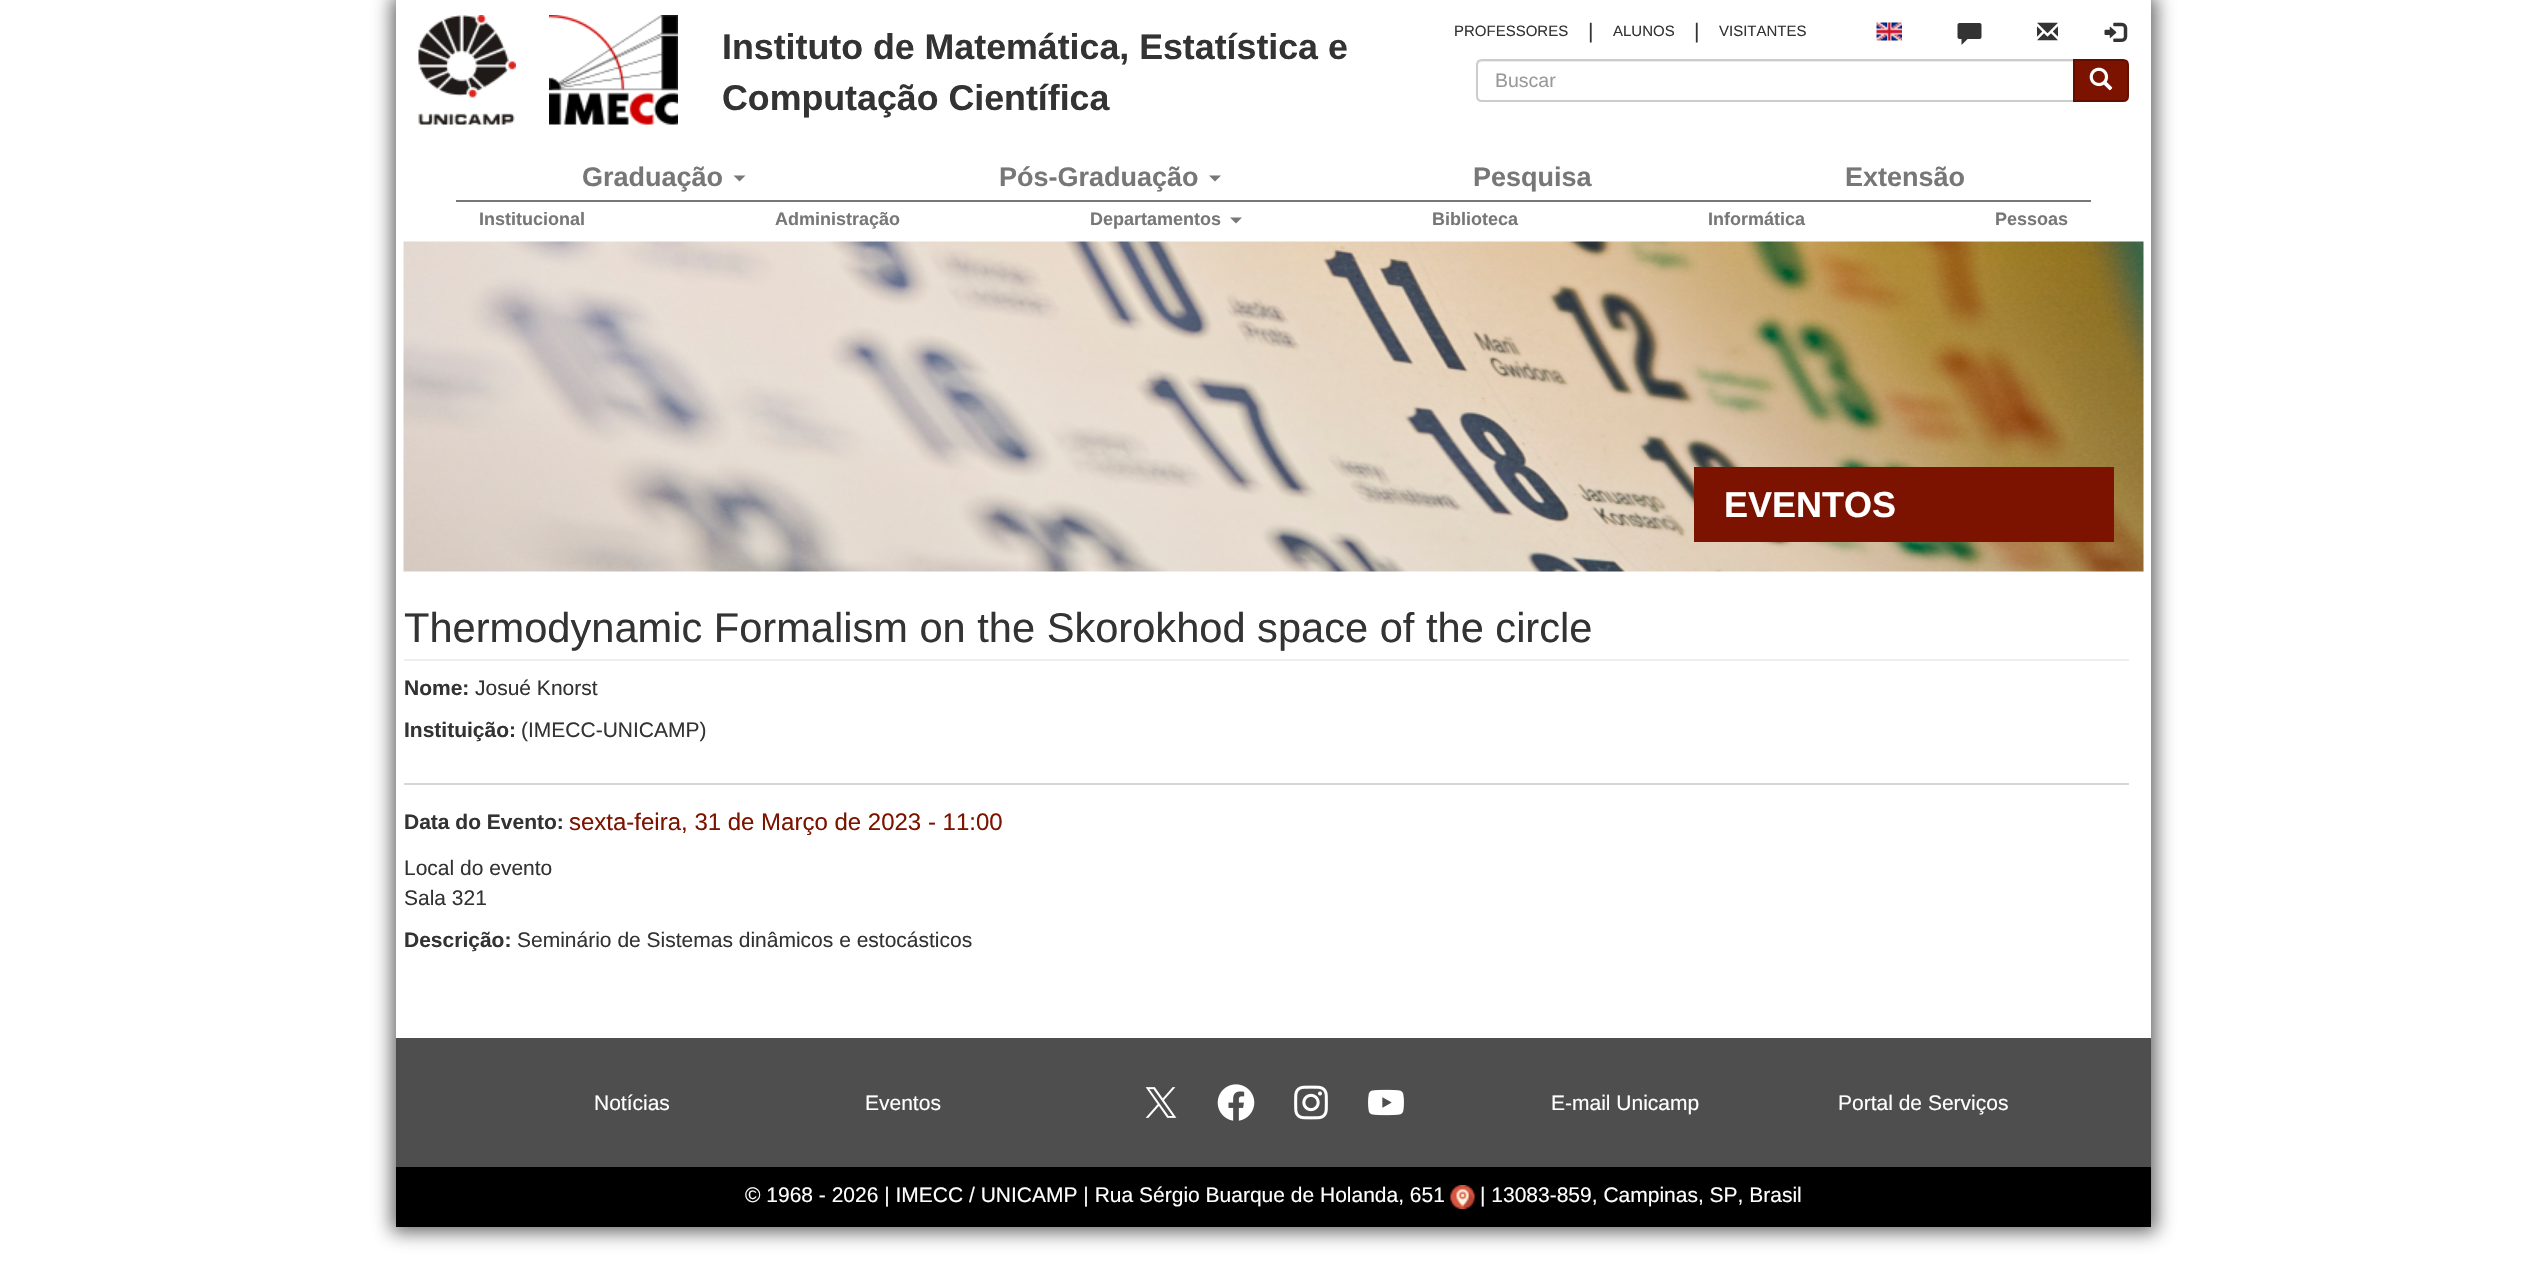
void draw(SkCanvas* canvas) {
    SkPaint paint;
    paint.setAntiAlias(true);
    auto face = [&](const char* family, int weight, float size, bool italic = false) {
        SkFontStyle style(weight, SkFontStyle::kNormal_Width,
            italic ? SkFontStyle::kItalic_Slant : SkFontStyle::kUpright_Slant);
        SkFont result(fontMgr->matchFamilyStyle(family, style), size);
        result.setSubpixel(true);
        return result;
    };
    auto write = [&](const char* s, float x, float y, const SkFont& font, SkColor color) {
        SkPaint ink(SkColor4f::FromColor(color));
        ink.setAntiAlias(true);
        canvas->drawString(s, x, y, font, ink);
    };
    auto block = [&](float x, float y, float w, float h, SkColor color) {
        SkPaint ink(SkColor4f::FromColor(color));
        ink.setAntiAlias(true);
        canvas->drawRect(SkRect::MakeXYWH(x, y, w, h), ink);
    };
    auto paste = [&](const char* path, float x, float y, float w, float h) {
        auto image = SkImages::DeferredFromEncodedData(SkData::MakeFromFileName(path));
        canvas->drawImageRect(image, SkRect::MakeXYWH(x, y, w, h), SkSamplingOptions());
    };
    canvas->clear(SK_ColorWHITE);
    canvas->save();
    canvas->clipPath(SkPathBuilder(SkPathFillType::kEvenOdd).moveTo(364, 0).lineTo(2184, 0).lineTo(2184, 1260).lineTo(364, 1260).close().moveTo(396, 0).lineTo(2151, 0).lineTo(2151, 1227).lineTo(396, 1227).close().detach(), true);
    paint.setColor(SkColorSetARGB(181, 34, 34, 34));
    paint.setMaskFilter(SkMaskFilter::MakeBlur(kNormal_SkBlurStyle, 9));
    canvas->drawRect(SkRect::MakeXYWH(392, -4, 1764, 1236), paint);
    paint.setMaskFilter(nullptr);
    canvas->restore();
    paste("pic1.png", 418, 15, 98, 110);
    paste("pic2.png", 549, 15, 129, 110);
    auto kFont1 = face("Liberation Sans", 700, 35.75f);
    write("Instituto de Matemática, Estatística e", 722, 59, kFont1, SkColorSetRGB(51, 51, 51));
    write("Computação Científica", 722, 110, kFont1, SkColorSetRGB(51, 51, 51));
    auto kFont2 = face("Liberation Sans", 400, 15);
    write("PROFESSORES", 1454, 36, kFont2, SkColorSetRGB(51, 51, 51));
    auto kFont3 = face("Liberation Sans", 400, 21);
    write("|", 1588, 38, kFont3, SkColorSetRGB(51, 51, 51));
    write("ALUNOS", 1613, 36, kFont2, SkColorSetRGB(51, 51, 51));
    write("|", 1694, 38, kFont3, SkColorSetRGB(51, 51, 51));
    write("VISITANTES", 1719, 36, kFont2, SkColorSetRGB(51, 51, 51));
    paste("pic3.png", 1876, 22, 26, 19);
    paste("pic4.png", 1957, 23, 25, 22);
    paste("pic5.png", 2037, 22, 21, 19);
    paste("pic6.png", 2104, 22, 24, 20);
    paint.setColor(SkColorSetRGB(236, 236, 236));
    canvas->drawPath(SkPathBuilder().moveTo(1482, 62).lineTo(2073, 62).lineTo(2073, 60).lineTo(1483, 60).cubicTo(1480, 60, 1478, 63, 1478, 66).cubicTo(1478, 64, 1480, 62, 1482, 62).close().detach(), paint);
    paint.setStyle(SkPaint::kStroke_Style);
    paint.setStrokeWidth(2);
    paint.setColor(SkColorSetRGB(204, 204, 204));
    canvas->drawPath(SkPathBuilder().moveTo(1482, 60).lineTo(2074, 60).lineTo(2074, 101).lineTo(1482, 101).cubicTo(1479, 101, 1477, 99, 1477, 96).lineTo(1477, 65).cubicTo(1477, 62, 1479, 60, 1482, 60).close().detach(), paint);
    auto kFont4 = face("Liberation Sans", 400, 19.5f);
    write("Buscar", 1495, 87, kFont4, SkColorSetRGB(153, 153, 153));
    paint.setStyle(SkPaint::kFill_Style);
    paint.setColor(SkColorSetRGB(123, 19, 0));
    canvas->drawPath(SkPathBuilder().moveTo(2074, 60).lineTo(2123, 60).cubicTo(2126, 60, 2128, 62, 2128, 65).lineTo(2128, 96).cubicTo(2128, 99, 2126, 101, 2123, 101).lineTo(2074, 101).close().detach(), paint);
    paint.setStyle(SkPaint::kStroke_Style);
    paint.setColor(SkColorSetRGB(98, 15, 0));
    canvas->drawPath(SkPathBuilder().moveTo(2074, 60).lineTo(2123, 60).cubicTo(2126, 60, 2128, 62, 2128, 65).lineTo(2128, 96).cubicTo(2128, 99, 2126, 101, 2123, 101).lineTo(2074, 101).close().detach(), paint);
    paste("pic7.png", 2089, 67, 24, 24);
    auto kFont5 = face("Liberation Sans", 700, 27);
    write("Graduação", 582, 186, kFont5, SkColorSetRGB(119, 119, 119));
    paint.setStyle(SkPaint::kFill_Style);
    paint.setColor(SkColorSetRGB(119, 119, 119));
    canvas->drawPath(SkPathBuilder().moveTo(733.5f, 175.5f).lineTo(745.5f, 175.5f).lineTo(739.5f, 181.5f).close().detach(), paint);
    write("Pós-Graduação", 999, 186, kFont5, SkColorSetRGB(119, 119, 119));
    canvas->drawPath(SkPathBuilder().moveTo(1209, 175.5f).lineTo(1221, 175.5f).lineTo(1215, 181.5f).close().detach(), paint);
    write("Pesquisa", 1473, 186, kFont5, SkColorSetRGB(119, 119, 119));
    write("Extensão", 1845, 186, kFont5, SkColorSetRGB(119, 119, 119));
    block(456, 200, 1635, 2, SkColorSetRGB(119, 119, 119));
    auto kFont6 = face("Liberation Sans", 700, 18);
    write("Institucional", 479, 225, kFont6, SkColorSetRGB(119, 119, 119));
    write("Administração", 775, 225, kFont6, SkColorSetRGB(119, 119, 119));
    write("Departamentos", 1090, 225, kFont6, SkColorSetRGB(119, 119, 119));
    canvas->drawPath(SkPathBuilder().moveTo(1230, 217.5f).lineTo(1242, 217.5f).lineTo(1236, 223.5f).close().detach(), paint);
    write("Biblioteca", 1432, 225, kFont6, SkColorSetRGB(119, 119, 119));
    write("Informática", 1708, 225, kFont6, SkColorSetRGB(119, 119, 119));
    write("Pessoas", 1995, 225, kFont6, SkColorSetRGB(119, 119, 119));
    paste("pic8.png", 403, 241, 1741, 331);
    block(1694, 467, 420, 75, SkColorSetRGB(123, 19, 0));
    auto kFont7 = face("Liberation Sans", 700, 36);
    write("EVENTOS", 1724, 517, kFont7, SK_ColorWHITE);
    block(404, 659, 1725, 2, SkColorSetRGB(238, 238, 238));
    auto kFont8 = face("Liberation Sans", 400, 41.6f);
    write("Thermodynamic Formalism on the Skorokhod space of the circle", 404, 642, kFont8, SkColorSetRGB(51, 51, 51));
    block(404, 783, 1725, 2, SkColorSetRGB(211, 215, 217));
    auto kFont9 = face("Liberation Sans", 700, 21);
    write("Nome:", 404, 695, kFont9, SkColorSetRGB(51, 51, 51));
    write("Josué Knorst", 475, 695, kFont3, SkColorSetRGB(51, 51, 51));
    write("Instituição:", 404, 737, kFont9, SkColorSetRGB(51, 51, 51));
    write("(IMECC-UNICAMP)", 521, 737, kFont3, SkColorSetRGB(51, 51, 51));
    write("Data do Evento:", 404, 829, kFont9, SkColorSetRGB(51, 51, 51));
    auto kFont10 = face("Liberation Sans", 400, 24);
    write("sexta-feira, 31 de Março de 2023 - 11:00", 569, 830, kFont10, SkColorSetRGB(123, 19, 0));
    write("Local do evento", 404, 875, kFont3, SkColorSetRGB(51, 51, 51));
    write("Sala 321", 404, 905, kFont3, SkColorSetRGB(51, 51, 51));
    write("Descrição:", 404, 947, kFont9, SkColorSetRGB(51, 51, 51));
    write("Seminário de Sistemas dinâmicos e estocásticos", 517, 947, kFont3, SkColorSetRGB(51, 51, 51));
    block(396, 1038, 1755, 129, SkColorSetRGB(78, 78, 78));
    write("Notícias", 594, 1110, kFont3, SK_ColorWHITE);
    write("Eventos", 865, 1110, kFont3, SK_ColorWHITE);
    paste("pic9.png", 1145, 1087, 32, 31);
    paste("pic10.png", 1217, 1084, 38, 37);
    paste("pic11.png", 1294, 1085, 34, 35);
    paste("pic12.png", 1368, 1089, 36, 27);
    write("E-mail Unicamp", 1551, 1110, kFont3, SK_ColorWHITE);
    write("Portal de Serviços", 1838, 1110, kFont3, SK_ColorWHITE);
    block(396, 1167, 1755, 60, SK_ColorBLACK);
    write("© 1968 - 2026 | IMECC / UNICAMP | Rua Sérgio Buarque de Holanda, 651", 745, 1202, kFont3, SK_ColorWHITE);
    paste("pic13.png", 1450, 1185, 25, 24);
    write("| 13083-859, Campinas, SP, Brasil", 1480, 1202, kFont3, SK_ColorWHITE);
}
